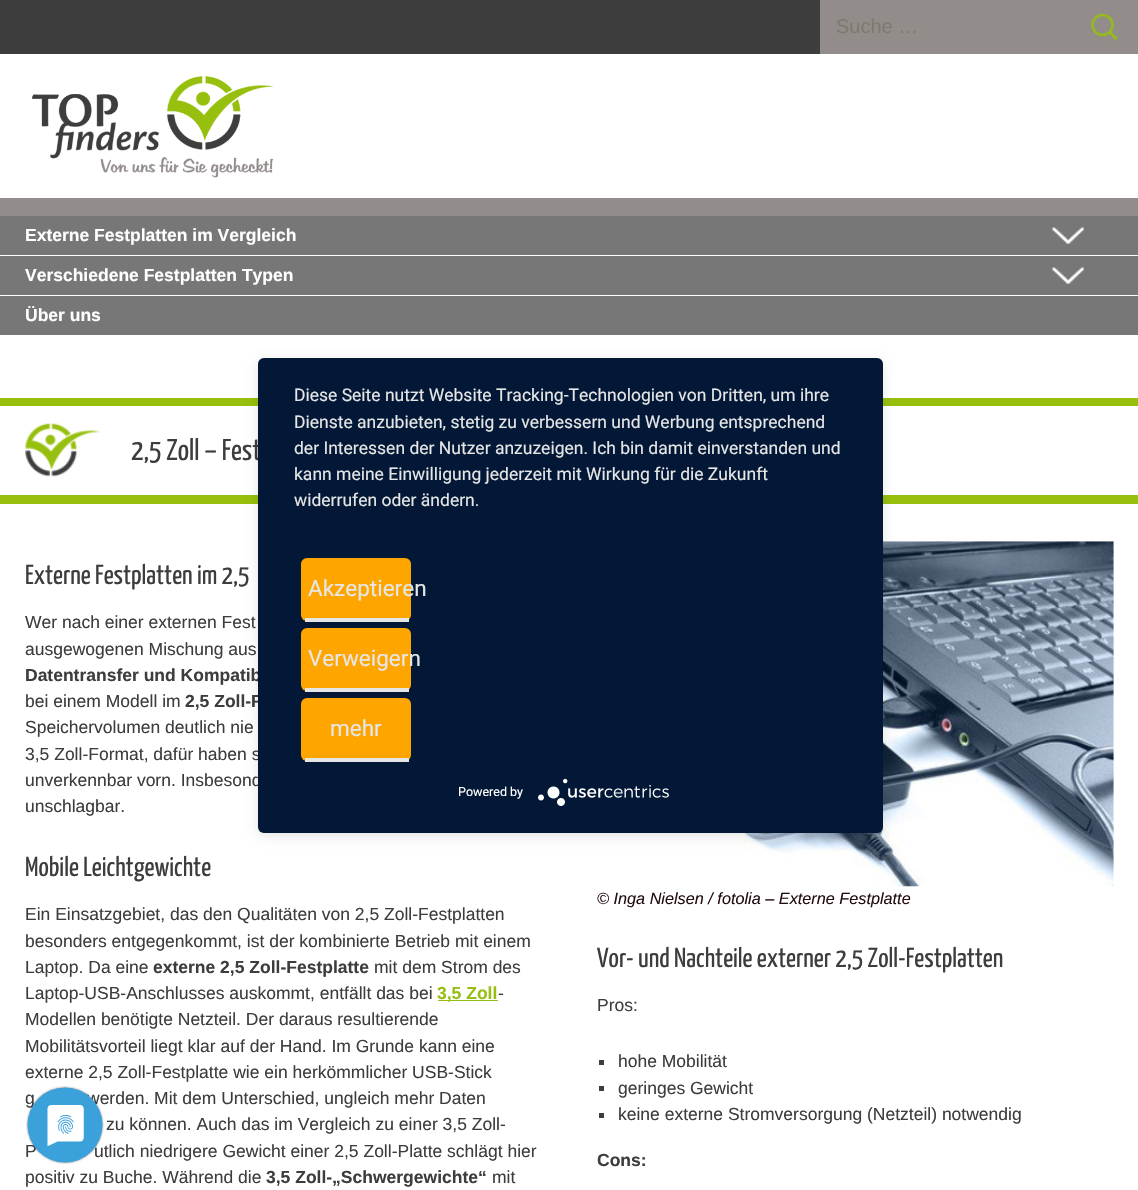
void draw(SkCanvas* canvas) {
    SkPaint paint;
    paint.setAntiAlias(true);
    auto face = [&](const char* family, int weight, float size, bool italic = false) {
        SkFontStyle style(weight, SkFontStyle::kNormal_Width,
            italic ? SkFontStyle::kItalic_Slant : SkFontStyle::kUpright_Slant);
        SkFont result(fontMgr->matchFamilyStyle(family, style), size);
        result.setSubpixel(true);
        return result;
    };
    auto write = [&](const char* s, float x, float y, const SkFont& font, SkColor color) {
        SkPaint ink(SkColor4f::FromColor(color));
        ink.setAntiAlias(true);
        canvas->drawString(s, x, y, font, ink);
    };
    auto block = [&](float x, float y, float w, float h, SkColor color) {
        SkPaint ink(SkColor4f::FromColor(color));
        ink.setAntiAlias(true);
        canvas->drawRect(SkRect::MakeXYWH(x, y, w, h), ink);
    };
    auto card = [&](float x, float y, float w, float h, float radius, SkColor color) {
        SkPaint ink(SkColor4f::FromColor(color));
        ink.setAntiAlias(true);
        canvas->drawRoundRect(SkRect::MakeXYWH(x, y, w, h), radius, radius, ink);
    };
    auto paste = [&](const char* path, float x, float y, float w, float h) {
        auto image = SkImages::DeferredFromEncodedData(SkData::MakeFromFileName(path));
        canvas->drawImageRect(image, SkRect::MakeXYWH(x, y, w, h), SkSamplingOptions());
    };
    canvas->clear(SkColorSetRGB(61, 61, 62));
    block(820, 0, 318, 54, SkColorSetRGB(146, 140, 139));
    auto kFont1 = face("Liberation Sans", 400, 20);
    write("Suche …", 836, 33, kFont1, SkColorSetRGB(125, 123, 109));
    paste("pic1.png", 1091, 13, 27, 28);
    block(0, 54, 1138, 144, SK_ColorWHITE);
    block(0, 198, 1138, 18, SkColorSetRGB(146, 140, 139));
    paste("pic2.png", 32, 76, 242, 102);
    block(0, 255, 1138, 1, SK_ColorWHITE);
    block(0, 216, 1138, 39, SkColorSetRGB(120, 119, 119));
    paste("pic3.png", 1052, 227, 32, 17);
    auto kFont2 = face("Liberation Sans", 700, 17.5f);
    write("Externe Festplatten im Vergleich", 25, 241, kFont2, SK_ColorWHITE);
    block(0, 295, 1138, 1, SK_ColorWHITE);
    block(0, 256, 1138, 39, SkColorSetRGB(120, 119, 119));
    paste("pic3.png", 1052, 267, 32, 17);
    write("Verschiedene Festplatten Typen", 25, 281, kFont2, SK_ColorWHITE);
    block(0, 296, 1138, 39, SkColorSetRGB(120, 119, 119));
    write("Über uns", 25, 321, kFont2, SK_ColorWHITE);
    block(0, 335, 1138, 855, SK_ColorWHITE);
    paste("pic4.png", 25, 423, 75, 54);
    block(0, 398, 1138, 8, SkColorSetRGB(151, 191, 13));
    block(0, 495, 1138, 9, SkColorSetRGB(151, 191, 13));
    auto kFont3 = face("Yanone Kaffeesatz", 400, 30);
    write("2,5 Zoll – Fest", 131, 460, kFont3, SkColorSetRGB(61, 61, 61));
    auto kFont4 = face("Yanone Kaffeesatz", 400, 27.5f);
    write("Externe Festplatten im 2,5", 25, 584, kFont4, SkColorSetRGB(61, 61, 61));
    auto kFont5 = face("Liberation Sans", 400, 17.5f);
    write("Wer nach einer externen Fest", 25, 628, kFont5, SkColorSetRGB(61, 61, 61));
    write("ausgewogenen Mischung aus", 25, 655, kFont5, SkColorSetRGB(61, 61, 61));
    write("Datentransfer und Kompatib", 25, 681, kFont2, SkColorSetRGB(61, 61, 61));
    write("bei einem Modell im", 25, 707, kFont5, SkColorSetRGB(61, 61, 61));
    write("2,5 Zoll-F", 185, 707, kFont2, SkColorSetRGB(61, 61, 61));
    write("Speichervolumen deutlich nie", 25, 733, kFont5, SkColorSetRGB(61, 61, 61));
    write("3,5 Zoll-Format, dafür haben s", 25, 760, kFont5, SkColorSetRGB(61, 61, 61));
    write("unverkennbar vorn. Insbesond", 25, 786, kFont5, SkColorSetRGB(61, 61, 61));
    write("unschlagbar.", 25, 812, kFont5, SkColorSetRGB(61, 61, 61));
    write("Mobile Leichtgewichte", 25, 876, kFont4, SkColorSetRGB(61, 61, 61));
    write("Ein Einsatzgebiet, das den Qualitäten von 2,5 Zoll-Festplatten", 25, 920, kFont5, SkColorSetRGB(61, 61, 61));
    write("besonders entgegenkommt, ist der kombinierte Betrieb mit einem", 25, 947, kFont5, SkColorSetRGB(61, 61, 61));
    write("Laptop. Da eine", 25, 973, kFont5, SkColorSetRGB(61, 61, 61));
    write("externe 2,5 Zoll-Festplatte", 153, 973, kFont2, SkColorSetRGB(61, 61, 61));
    write("mit dem Strom des", 374, 973, kFont5, SkColorSetRGB(61, 61, 61));
    write("Laptop-USB-Anschlusses auskommt, entfällt das bei", 25, 999, kFont5, SkColorSetRGB(61, 61, 61));
    block(438, 1000, 60, 1, SkColorSetRGB(150, 191, 17));
    write("3,5 Zoll", 437, 999, kFont2, SkColorSetRGB(150, 191, 17));
    write("-", 498, 999, kFont5, SkColorSetRGB(61, 61, 61));
    write("Modellen benötigte Netzteil. Der daraus resultierende", 25, 1025, kFont5, SkColorSetRGB(61, 61, 61));
    write("Mobilitätsvorteil liegt klar auf der Hand. Im Grunde kann eine", 25, 1052, kFont5, SkColorSetRGB(61, 61, 61));
    write("externe 2,5 Zoll-Festplatte wie ein herkömmlicher USB-Stick", 25, 1078, kFont5, SkColorSetRGB(61, 61, 61));
    write("g", 25, 1104, kFont5, SkColorSetRGB(61, 61, 61));
    write("werden. Mit dem Unterschied, ungleich mehr Daten", 87, 1104, kFont5, SkColorSetRGB(61, 61, 61));
    write("zu können. Auch das im Vergleich zu einer 3,5 Zoll-", 106, 1130, kFont5, SkColorSetRGB(61, 61, 61));
    write("P", 25, 1157, kFont5, SkColorSetRGB(61, 61, 61));
    write("utlich niedrigere Gewicht einer 2,5 Zoll-Platte schlägt hier", 94, 1157, kFont5, SkColorSetRGB(61, 61, 61));
    write("positiv zu Buche. Während die", 25, 1183, kFont5, SkColorSetRGB(61, 61, 61));
    write("3,5 Zoll-„Schwergewichte“", 266, 1183, kFont2, SkColorSetRGB(61, 61, 61));
    write("mit", 492, 1183, kFont5, SkColorSetRGB(61, 61, 61));
    paste("pic5.png", 613, 541, 501, 346);
    auto kFont6 = face("Liberation Sans", 400, 16.25f, true);
    write("© Inga Nielsen / fotolia – Externe Festplatte", 597, 904, kFont6, SkColorSetRGB(34, 14, 16));
    write("Vor- und Nachteile externer 2,5 Zoll-Festplatten", 597, 967, kFont4, SkColorSetRGB(61, 61, 61));
    write("Pros:", 597, 1011, kFont5, SkColorSetRGB(61, 61, 61));
    block(599, 1060, 5, 5, SkColorSetRGB(61, 61, 61));
    write("hohe Mobilität", 618, 1067, kFont5, SkColorSetRGB(61, 61, 61));
    block(599, 1086, 5, 5, SkColorSetRGB(61, 61, 61));
    write("geringes Gewicht", 618, 1094, kFont5, SkColorSetRGB(61, 61, 61));
    block(599, 1113, 5, 5, SkColorSetRGB(61, 61, 61));
    write("keine externe Stromversorgung (Netzteil) notwendig", 618, 1120, kFont5, SkColorSetRGB(61, 61, 61));
    write("Cons:", 597, 1166, kFont2, SkColorSetRGB(61, 61, 61));
    paint.setColor(SkColorSetARGB(26, 0, 0, 0));
    paint.setMaskFilter(SkMaskFilter::MakeBlur(kNormal_SkBlurStyle, 6));
    canvas->drawRoundRect(SkRect::MakeXYWH(258, 361, 625, 475), 6, 6, paint);
    paint.setMaskFilter(nullptr);
    canvas->save();
    canvas->clipPath(SkPathBuilder().moveTo(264, 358).lineTo(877, 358).cubicTo(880.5f, 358, 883, 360.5f, 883, 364).lineTo(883, 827).cubicTo(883, 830.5f, 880.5f, 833, 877, 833).lineTo(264, 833).cubicTo(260.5f, 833, 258, 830.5f, 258, 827).lineTo(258, 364).cubicTo(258, 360.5f, 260.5f, 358, 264, 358).close().detach(), true);
    paint.setColor(SkColorSetARGB(77, 0, 0, 0));
    paint.setMaskFilter(SkMaskFilter::MakeBlur(kNormal_SkBlurStyle, 22.5f));
    canvas->drawRect(SkRect::MakeXYWH(258, 365, 625, 475), paint);
    paint.setMaskFilter(nullptr);
    canvas->restore();
    card(258, 358, 625, 475, 6, SkColorSetRGB(2, 24, 54));
    auto kFont7 = face("Roboto", 400, 17.5f);
    write("Diese Seite nutzt Website Tracking-Technologien von Dritten, um ihre", 294, 401, kFont7, SkColorSetRGB(230, 230, 230));
    write("Dienste anzubieten, stetig zu verbessern und Werbung entsprechend", 294, 428, kFont7, SkColorSetRGB(230, 230, 230));
    write("der Interessen der Nutzer anzuzeigen. Ich bin damit einverstanden und", 294, 454, kFont7, SkColorSetRGB(230, 230, 230));
    write("kann meine Einwilligung jederzeit mit Wirkung für die Zukunft", 294, 480, kFont7, SkColorSetRGB(230, 230, 230));
    write("widerrufen oder ändern.", 294, 506, kFont7, SkColorSetRGB(230, 230, 230));
    card(301, 558, 110, 63, 6, SkColorSetRGB(255, 165, 0));
    block(305, 618, 104, 4, SkColorSetRGB(230, 230, 230));
    auto kFont8 = face("Roboto", 400, 22.5f);
    write("Akzeptieren", 308, 596, kFont8, SkColorSetRGB(230, 230, 230));
    card(301, 628, 110, 63, 6, SkColorSetRGB(255, 165, 0));
    block(305, 688, 104, 4, SkColorSetRGB(230, 230, 230));
    write("Verweigern", 308, 666, kFont8, SkColorSetRGB(230, 230, 230));
    card(301, 698, 110, 63, 6, SkColorSetRGB(255, 165, 0));
    block(305, 758, 104, 4, SkColorSetRGB(230, 230, 230));
    write("mehr", 330, 736, kFont8, SkColorSetRGB(230, 230, 230));
    auto kFont9 = face("Roboto", 400, 12.5f);
    write("Powered by", 458, 796, kFont9, SK_ColorWHITE);
    paste("pic6.png", 538, 778, 131, 28);
    paste("pic7.png", 26, 1086, 78, 78);
}
